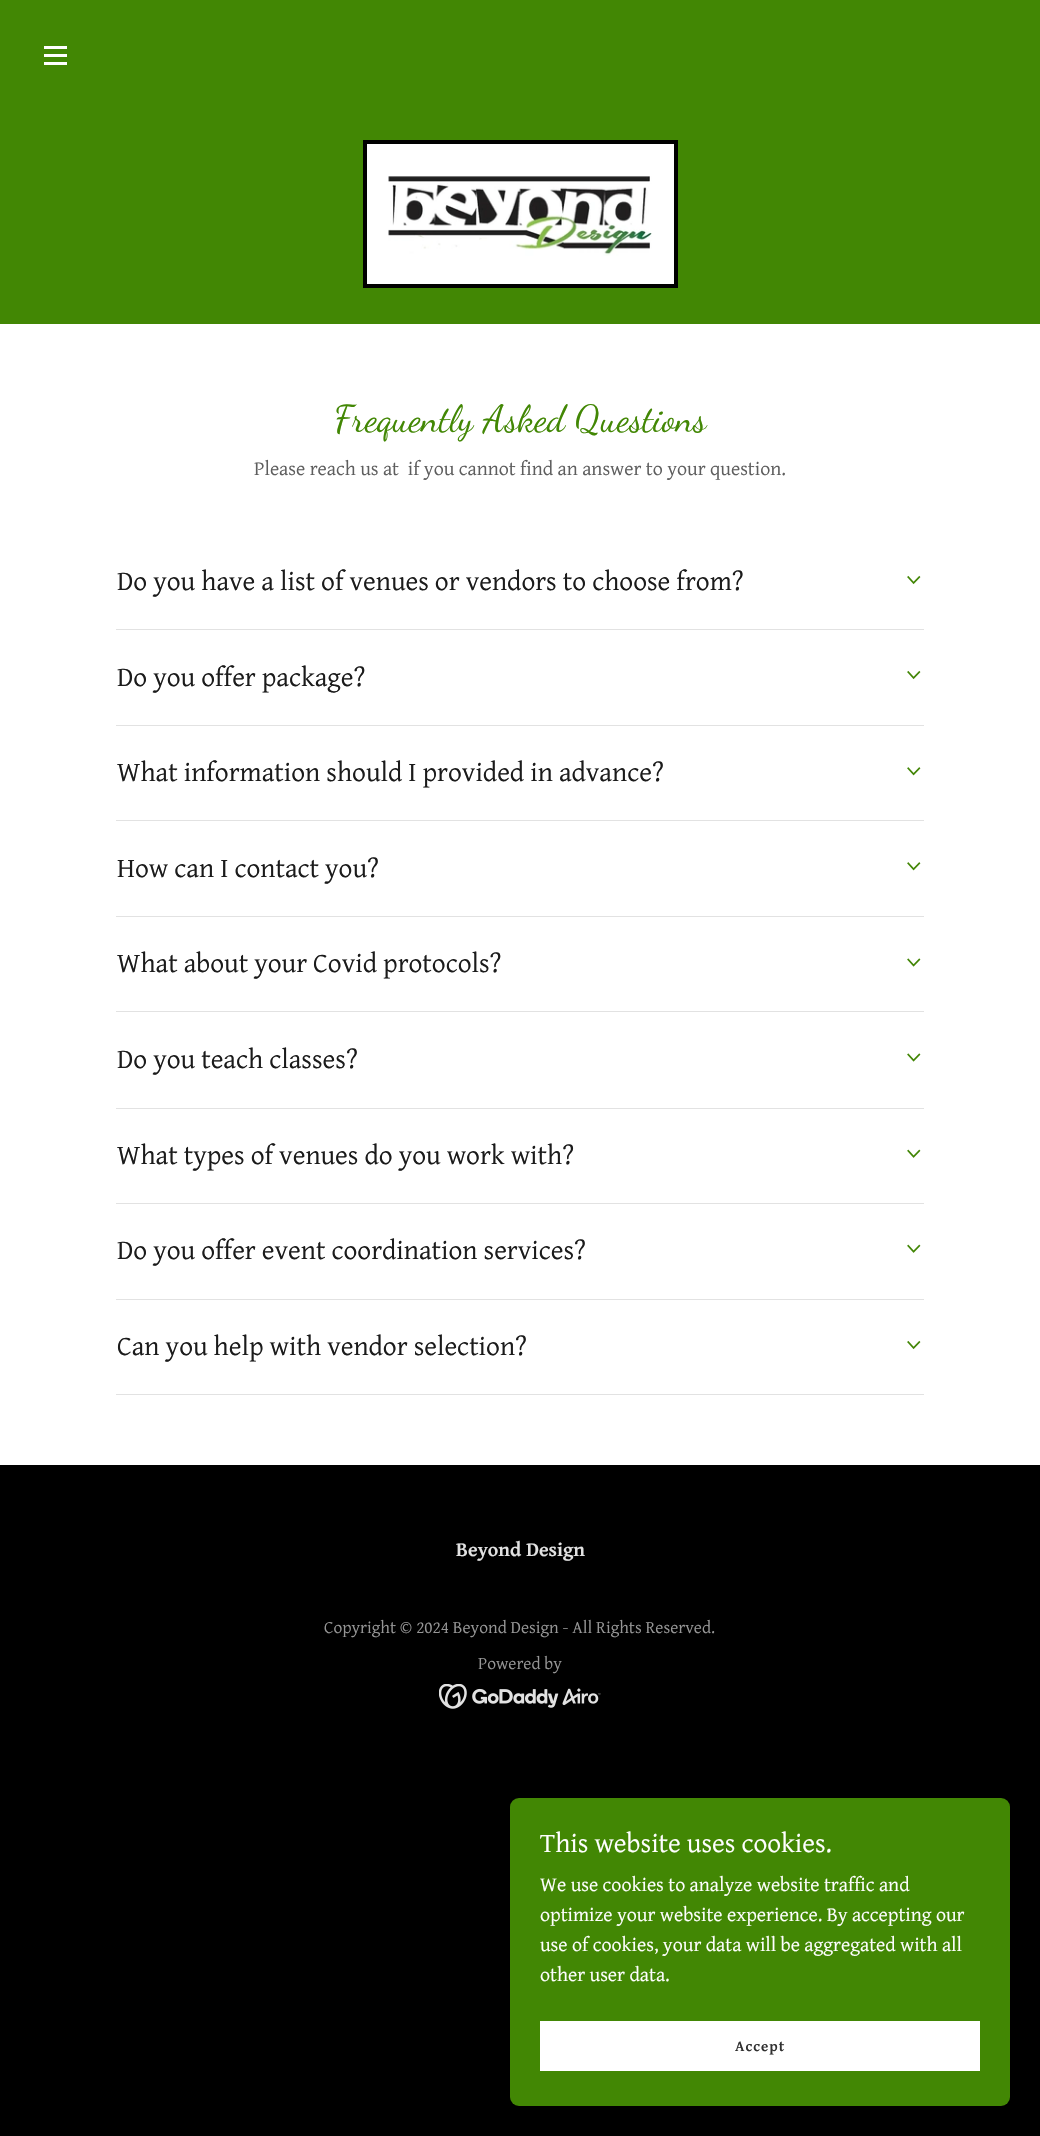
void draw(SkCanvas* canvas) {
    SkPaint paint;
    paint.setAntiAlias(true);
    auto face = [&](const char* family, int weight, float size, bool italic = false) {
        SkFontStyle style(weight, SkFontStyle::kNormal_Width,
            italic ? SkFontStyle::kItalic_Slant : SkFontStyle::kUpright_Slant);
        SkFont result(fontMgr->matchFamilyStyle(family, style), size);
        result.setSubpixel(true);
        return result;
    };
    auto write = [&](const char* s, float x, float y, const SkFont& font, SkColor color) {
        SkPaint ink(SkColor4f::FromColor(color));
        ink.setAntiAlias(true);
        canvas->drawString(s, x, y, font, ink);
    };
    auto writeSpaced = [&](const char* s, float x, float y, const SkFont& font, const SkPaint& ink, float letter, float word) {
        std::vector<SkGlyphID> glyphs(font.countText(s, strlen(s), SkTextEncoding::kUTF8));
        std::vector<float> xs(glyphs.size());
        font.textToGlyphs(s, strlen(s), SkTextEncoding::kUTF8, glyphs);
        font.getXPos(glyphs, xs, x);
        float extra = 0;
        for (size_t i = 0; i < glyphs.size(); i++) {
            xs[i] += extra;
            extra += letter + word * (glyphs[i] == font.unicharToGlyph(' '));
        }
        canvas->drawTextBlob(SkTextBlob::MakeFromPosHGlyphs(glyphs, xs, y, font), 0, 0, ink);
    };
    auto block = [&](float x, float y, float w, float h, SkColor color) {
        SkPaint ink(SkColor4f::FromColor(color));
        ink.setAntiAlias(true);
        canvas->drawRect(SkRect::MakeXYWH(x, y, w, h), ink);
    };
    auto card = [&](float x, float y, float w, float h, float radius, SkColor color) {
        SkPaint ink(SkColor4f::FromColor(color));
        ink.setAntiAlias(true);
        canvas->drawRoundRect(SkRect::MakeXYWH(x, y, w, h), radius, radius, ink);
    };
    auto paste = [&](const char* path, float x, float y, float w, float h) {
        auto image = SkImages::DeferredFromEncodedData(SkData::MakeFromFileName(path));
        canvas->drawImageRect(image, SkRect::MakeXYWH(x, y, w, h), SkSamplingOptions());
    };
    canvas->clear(SK_ColorBLACK);
    block(0, 0, 1040, 324, SkColorSetRGB(66, 135, 4));
    block(44, 46, 23, 3, SK_ColorWHITE);
    block(44, 54, 23, 3, SK_ColorWHITE);
    block(44, 62, 23, 3, SK_ColorWHITE);
    paint.setColor(SK_ColorWHITE);
    canvas->drawRect(SkRect::MakeXYWH(365, 142, 311, 144), paint);
    paint.setStyle(SkPaint::kStroke_Style);
    paint.setStrokeWidth(4);
    paint.setColor(SK_ColorBLACK);
    canvas->drawRect(SkRect::MakeXYWH(365, 142, 311, 144), paint);
    paste("pic1.png", 388, 176, 264, 80);
    block(0, 324, 1040, 1141, SK_ColorWHITE);
    auto kFont1 = face("Dancing Script", 400, 37.5f);
    write("Frequently Asked Questions", 334, 431, kFont1, SkColorSetRGB(66, 135, 4));
    auto kFont2 = face("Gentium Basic", 400, 20);
    write("Please reach us at  if you cannot find an answer to your question.", 254, 475, kFont2, SkColorSetRGB(94, 94, 94));
    auto kFont3 = face("Gentium Basic", 400, 27.5f);
    write("Do you have a list of venues or vendors to choose from?", 117, 590, kFont3, SkColorSetRGB(27, 27, 27));
    paste("pic2.png", 907, 575, 14, 10);
    block(116, 629, 808, 1, SkColorSetRGB(226, 226, 226));
    write("Do you offer package?", 117, 686, kFont3, SkColorSetRGB(27, 27, 27));
    paste("pic2.png", 907, 670, 14, 10);
    block(116, 725, 808, 1, SkColorSetRGB(226, 226, 226));
    write("What information should I provided in advance?", 117, 781, kFont3, SkColorSetRGB(27, 27, 27));
    paste("pic3.png", 907, 767, 14, 9);
    block(116, 820, 808, 1, SkColorSetRGB(226, 226, 226));
    write("How can I contact you?", 117, 877, kFont3, SkColorSetRGB(27, 27, 27));
    paste("pic3.png", 907, 862, 14, 9);
    block(116, 916, 808, 1, SkColorSetRGB(226, 226, 226));
    write("What about your Covid protocols?", 117, 972, kFont3, SkColorSetRGB(27, 27, 27));
    paste("pic4.png", 907, 958, 14, 9);
    block(116, 1011, 808, 1, SkColorSetRGB(226, 226, 226));
    write("Do you teach classes?", 117, 1068, kFont3, SkColorSetRGB(27, 27, 27));
    paste("pic4.png", 907, 1053, 14, 9);
    block(116, 1108, 808, 1, SkColorSetRGB(226, 226, 226));
    write("What types of venues do you work with?", 117, 1164, kFont3, SkColorSetRGB(27, 27, 27));
    paste("pic5.png", 907, 1149, 14, 9);
    block(116, 1203, 808, 1, SkColorSetRGB(226, 226, 226));
    write("Do you offer event coordination services?", 117, 1259, kFont3, SkColorSetRGB(27, 27, 27));
    paste("pic5.png", 907, 1244, 14, 9);
    block(116, 1299, 808, 1, SkColorSetRGB(226, 226, 226));
    write("Can you help with vendor selection?", 117, 1355, kFont3, SkColorSetRGB(27, 27, 27));
    paste("pic2.png", 907, 1340, 14, 10);
    block(116, 1394, 808, 1, SkColorSetRGB(226, 226, 226));
    auto kFont4 = face("Gentium Basic", 700, 20);
    write("Beyond Design", 456, 1556, kFont4, SkColorSetRGB(226, 226, 226));
    auto kFont5 = face("Gentium Basic", 400, 17.5f);
    write("Copyright © 2024 Beyond Design - All Rights Reserved.", 324, 1633, kFont5, SkColorSetRGB(150, 150, 150));
    write("Powered by", 478, 1669, kFont5, SkColorSetRGB(150, 150, 150));
    paste("pic6.png", 439, 1684, 162, 25);
    card(510, 1798, 500, 308, 9, SkColorSetRGB(66, 135, 4));
    write("This website uses cookies.", 540, 1852, kFont3, SK_ColorWHITE);
    write("We use cookies to analyze website traffic and", 540, 1891, kFont2, SK_ColorWHITE);
    write("optimize your website experience. By accepting our", 540, 1921, kFont2, SK_ColorWHITE);
    write("use of cookies, your data will be aggregated with all", 540, 1951, kFont2, SK_ColorWHITE);
    write("other user data.", 540, 1981, kFont2, SK_ColorWHITE);
    block(540, 2021, 440, 50, SK_ColorWHITE);
    auto kFont6 = face("Gentium Basic", 700, 15);
    paint.setStyle(SkPaint::kFill_Style);
    paint.setColor(SkColorSetRGB(48, 48, 48));
    writeSpaced("Accept", 735, 2051, kFont6, paint, 1, 0);
}
